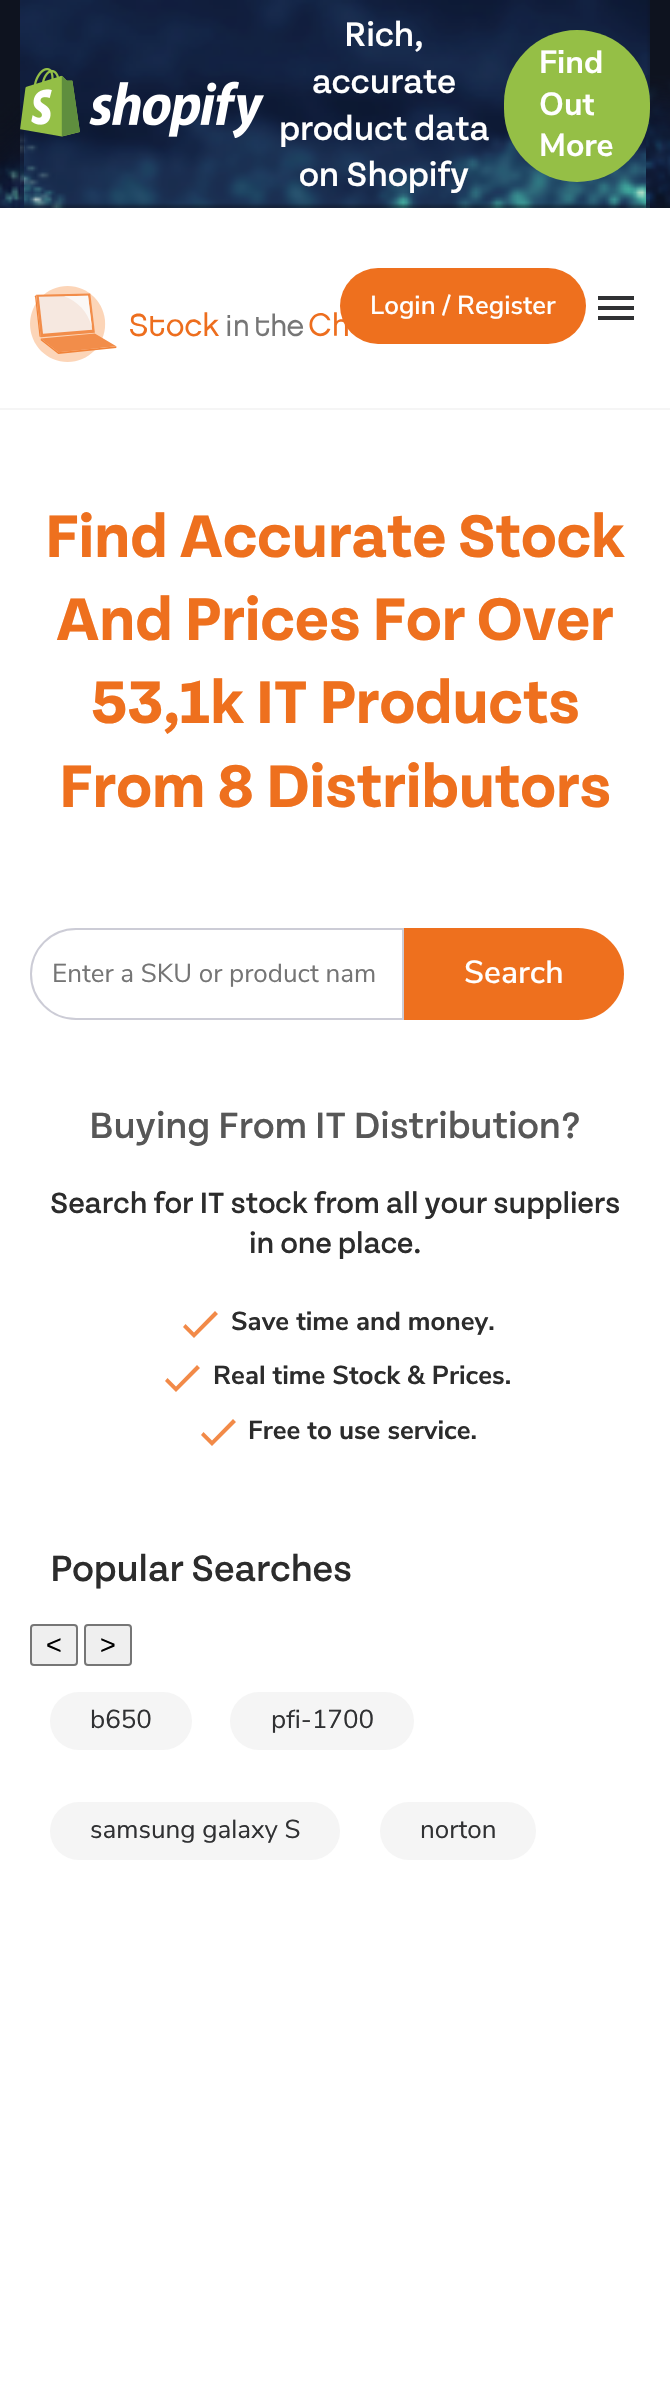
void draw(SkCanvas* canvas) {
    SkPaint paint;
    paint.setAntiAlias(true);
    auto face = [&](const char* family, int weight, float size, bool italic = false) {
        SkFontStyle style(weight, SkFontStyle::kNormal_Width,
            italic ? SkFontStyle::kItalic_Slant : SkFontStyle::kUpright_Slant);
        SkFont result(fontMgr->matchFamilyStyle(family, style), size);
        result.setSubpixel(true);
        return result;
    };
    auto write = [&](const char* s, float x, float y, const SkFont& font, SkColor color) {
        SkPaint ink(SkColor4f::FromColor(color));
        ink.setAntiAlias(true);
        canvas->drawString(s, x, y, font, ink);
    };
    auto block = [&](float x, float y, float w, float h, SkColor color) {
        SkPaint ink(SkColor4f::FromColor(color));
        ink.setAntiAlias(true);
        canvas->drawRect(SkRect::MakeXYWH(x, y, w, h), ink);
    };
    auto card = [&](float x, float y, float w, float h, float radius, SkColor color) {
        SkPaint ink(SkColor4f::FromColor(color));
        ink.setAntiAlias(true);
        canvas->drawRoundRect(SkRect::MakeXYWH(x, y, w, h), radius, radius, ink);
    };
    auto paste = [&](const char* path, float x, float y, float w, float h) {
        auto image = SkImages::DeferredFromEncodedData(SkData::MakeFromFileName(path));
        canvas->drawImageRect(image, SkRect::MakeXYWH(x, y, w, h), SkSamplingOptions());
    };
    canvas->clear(SK_ColorWHITE);
    block(0, 408, 670, 2, SkColorSetRGB(245, 245, 245));
    block(0, 0, 670, 208, SkColorSetRGB(14, 19, 31));
    paste("pic1.png", 20, 0, 630, 208);
    paste("pic2.png", 0, 103, 24, 105);
    paste("pic3.png", 20, 68, 244, 70);
    auto kFont1 = face("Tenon", 500, 36);
    write("Rich,", 344, 46, kFont1, SK_ColorWHITE);
    write("accurate", 312, 93, kFont1, SK_ColorWHITE);
    write("product data", 279, 140, kFont1, SK_ColorWHITE);
    write("on Shopify", 299, 186, kFont1, SK_ColorWHITE);
    paste("pic4.png", 646, 75, 24, 133);
    card(504, 30, 146, 152, 73, SkColorSetRGB(149, 191, 70));
    auto kFont2 = face("Nunito Sans", 700, 32);
    write("Find", 539, 73, kFont2, SK_ColorWHITE);
    write("Out", 539, 115, kFont2, SK_ColorWHITE);
    write("More", 539, 156, kFont2, SK_ColorWHITE);
    paste("pic5.png", 30, 286, 324, 76);
    card(340, 268, 246, 76, 38, SkColorSetRGB(238, 112, 30));
    auto kFont3 = face("Nunito Sans", 600, 26);
    write("Login / Register", 370, 314, kFont3, SK_ColorWHITE);
    paint.setColor(SkColorSetRGB(48, 49, 51));
    canvas->drawPath(SkPathBuilder().moveTo(598, 296).lineTo(634, 296).lineTo(634, 300).lineTo(598, 300).close().moveTo(598, 310).lineTo(598, 306).lineTo(634, 306).lineTo(634, 310).close().moveTo(598, 320).lineTo(598, 316).lineTo(634, 316).lineTo(634, 320).close().detach(), paint);
    auto kFont4 = face("Tenon", 700, 64);
    write("Find Accurate Stock", 45, 557, kFont4, SkColorSetRGB(238, 112, 30));
    write("And Prices For Over", 56, 640, kFont4, SkColorSetRGB(238, 112, 30));
    write("53,1k IT Products", 91, 723, kFont4, SkColorSetRGB(238, 112, 30));
    write("From 8 Distributors", 59, 807, kFont4, SkColorSetRGB(238, 112, 30));
    paint.setStyle(SkPaint::kStroke_Style);
    paint.setStrokeWidth(2);
    paint.setColor(SkColorSetRGB(204, 204, 214));
    canvas->drawPath(SkPathBuilder().moveTo(76, 929).lineTo(403, 929).lineTo(403, 1019).lineTo(76, 1019).cubicTo(51, 1019, 31, 999, 31, 974).cubicTo(31, 949, 51, 929, 76, 929).close().detach(), paint);
    auto kFont5 = face("Nunito Sans", 400, 26);
    write("Enter a SKU or product nam", 52, 982, kFont5, SkColorSetRGB(117, 117, 117));
    paint.setStyle(SkPaint::kFill_Style);
    paint.setColor(SkColorSetRGB(238, 112, 30));
    canvas->drawPath(SkPathBuilder().moveTo(404, 928).lineTo(578, 928).cubicTo(603.5f, 928, 624, 948.5f, 624, 974).cubicTo(624, 999.5f, 603.5f, 1020, 578, 1020).lineTo(404, 1020).close().detach(), paint);
    auto kFont6 = face("Nunito Sans", 600, 32);
    write("Search", 464, 983, kFont6, SK_ColorWHITE);
    auto kFont7 = face("Tenon", 500, 39);
    write("Buying From IT Distribution?", 89, 1138, kFont7, SkColorSetRGB(87, 87, 87));
    auto kFont8 = face("Tenon", 500, 31.25f);
    write("Search for IT stock from all your suppliers", 50, 1213, kFont8, SkColorSetRGB(44, 44, 44));
    write("in one place.", 249, 1253, kFont8, SkColorSetRGB(44, 44, 44));
    paint.setColor(SkColorSetRGB(242, 138, 72));
    canvas->drawPath(SkPathBuilder().moveTo(194, 1332.5f).lineTo(215, 1311).lineTo(218, 1314).lineTo(194, 1338).lineTo(183, 1327).lineTo(185.5f, 1324).close().detach(), paint);
    auto kFont9 = face("Nunito Sans", 700, 26);
    write("Save time and money.", 231, 1330, kFont9, SkColorSetRGB(44, 44, 44));
    canvas->drawPath(SkPathBuilder().moveTo(176, 1386.5f).lineTo(197, 1365).lineTo(200, 1368).lineTo(176, 1392).lineTo(165, 1381).lineTo(167.5f, 1378).close().detach(), paint);
    write("Real time Stock & Prices.", 213, 1384, kFont9, SkColorSetRGB(44, 44, 44));
    canvas->drawPath(SkPathBuilder().moveTo(212, 1440.5f).lineTo(233, 1419).lineTo(236, 1422).lineTo(212, 1446).lineTo(201, 1435).lineTo(203.5f, 1432).close().detach(), paint);
    write("Free to use service.", 248, 1439, kFont9, SkColorSetRGB(44, 44, 44));
    write("Popular Searches", 50, 1581, kFont7, SkColorSetRGB(44, 44, 44));
    paint.setColor(SkColorSetRGB(239, 239, 239));
    canvas->drawRoundRect(SkRect::MakeXYWH(31, 1625, 46, 40), 3, 3, paint);
    paint.setStyle(SkPaint::kStroke_Style);
    paint.setColor(SkColorSetRGB(118, 118, 118));
    canvas->drawRoundRect(SkRect::MakeXYWH(31, 1625, 46, 40), 3, 3, paint);
    auto kFont10 = face("Liberation Sans", 400, 27);
    write("<", 46, 1654, kFont10, SK_ColorBLACK);
    paint.setStyle(SkPaint::kFill_Style);
    paint.setColor(SkColorSetRGB(239, 239, 239));
    canvas->drawRoundRect(SkRect::MakeXYWH(85, 1625, 46, 40), 3, 3, paint);
    paint.setStyle(SkPaint::kStroke_Style);
    paint.setColor(SkColorSetRGB(118, 118, 118));
    canvas->drawRoundRect(SkRect::MakeXYWH(85, 1625, 46, 40), 3, 3, paint);
    write(">", 100, 1654, kFont10, SK_ColorBLACK);
    card(50, 1692, 142, 58, 29, SkColorSetRGB(245, 245, 245));
    write("b650", 90, 1728, kFont5, SkColorSetRGB(48, 49, 51));
    card(230, 1692, 184, 58, 29, SkColorSetRGB(245, 245, 245));
    write("pfi-1700", 271, 1728, kFont5, SkColorSetRGB(48, 49, 51));
    card(50, 1802, 290, 58, 29, SkColorSetRGB(245, 245, 245));
    write("samsung galaxy S", 90, 1838, kFont5, SkColorSetRGB(48, 49, 51));
    card(380, 1802, 156, 58, 29, SkColorSetRGB(245, 245, 245));
    write("norton", 420, 1838, kFont5, SkColorSetRGB(48, 49, 51));
}
